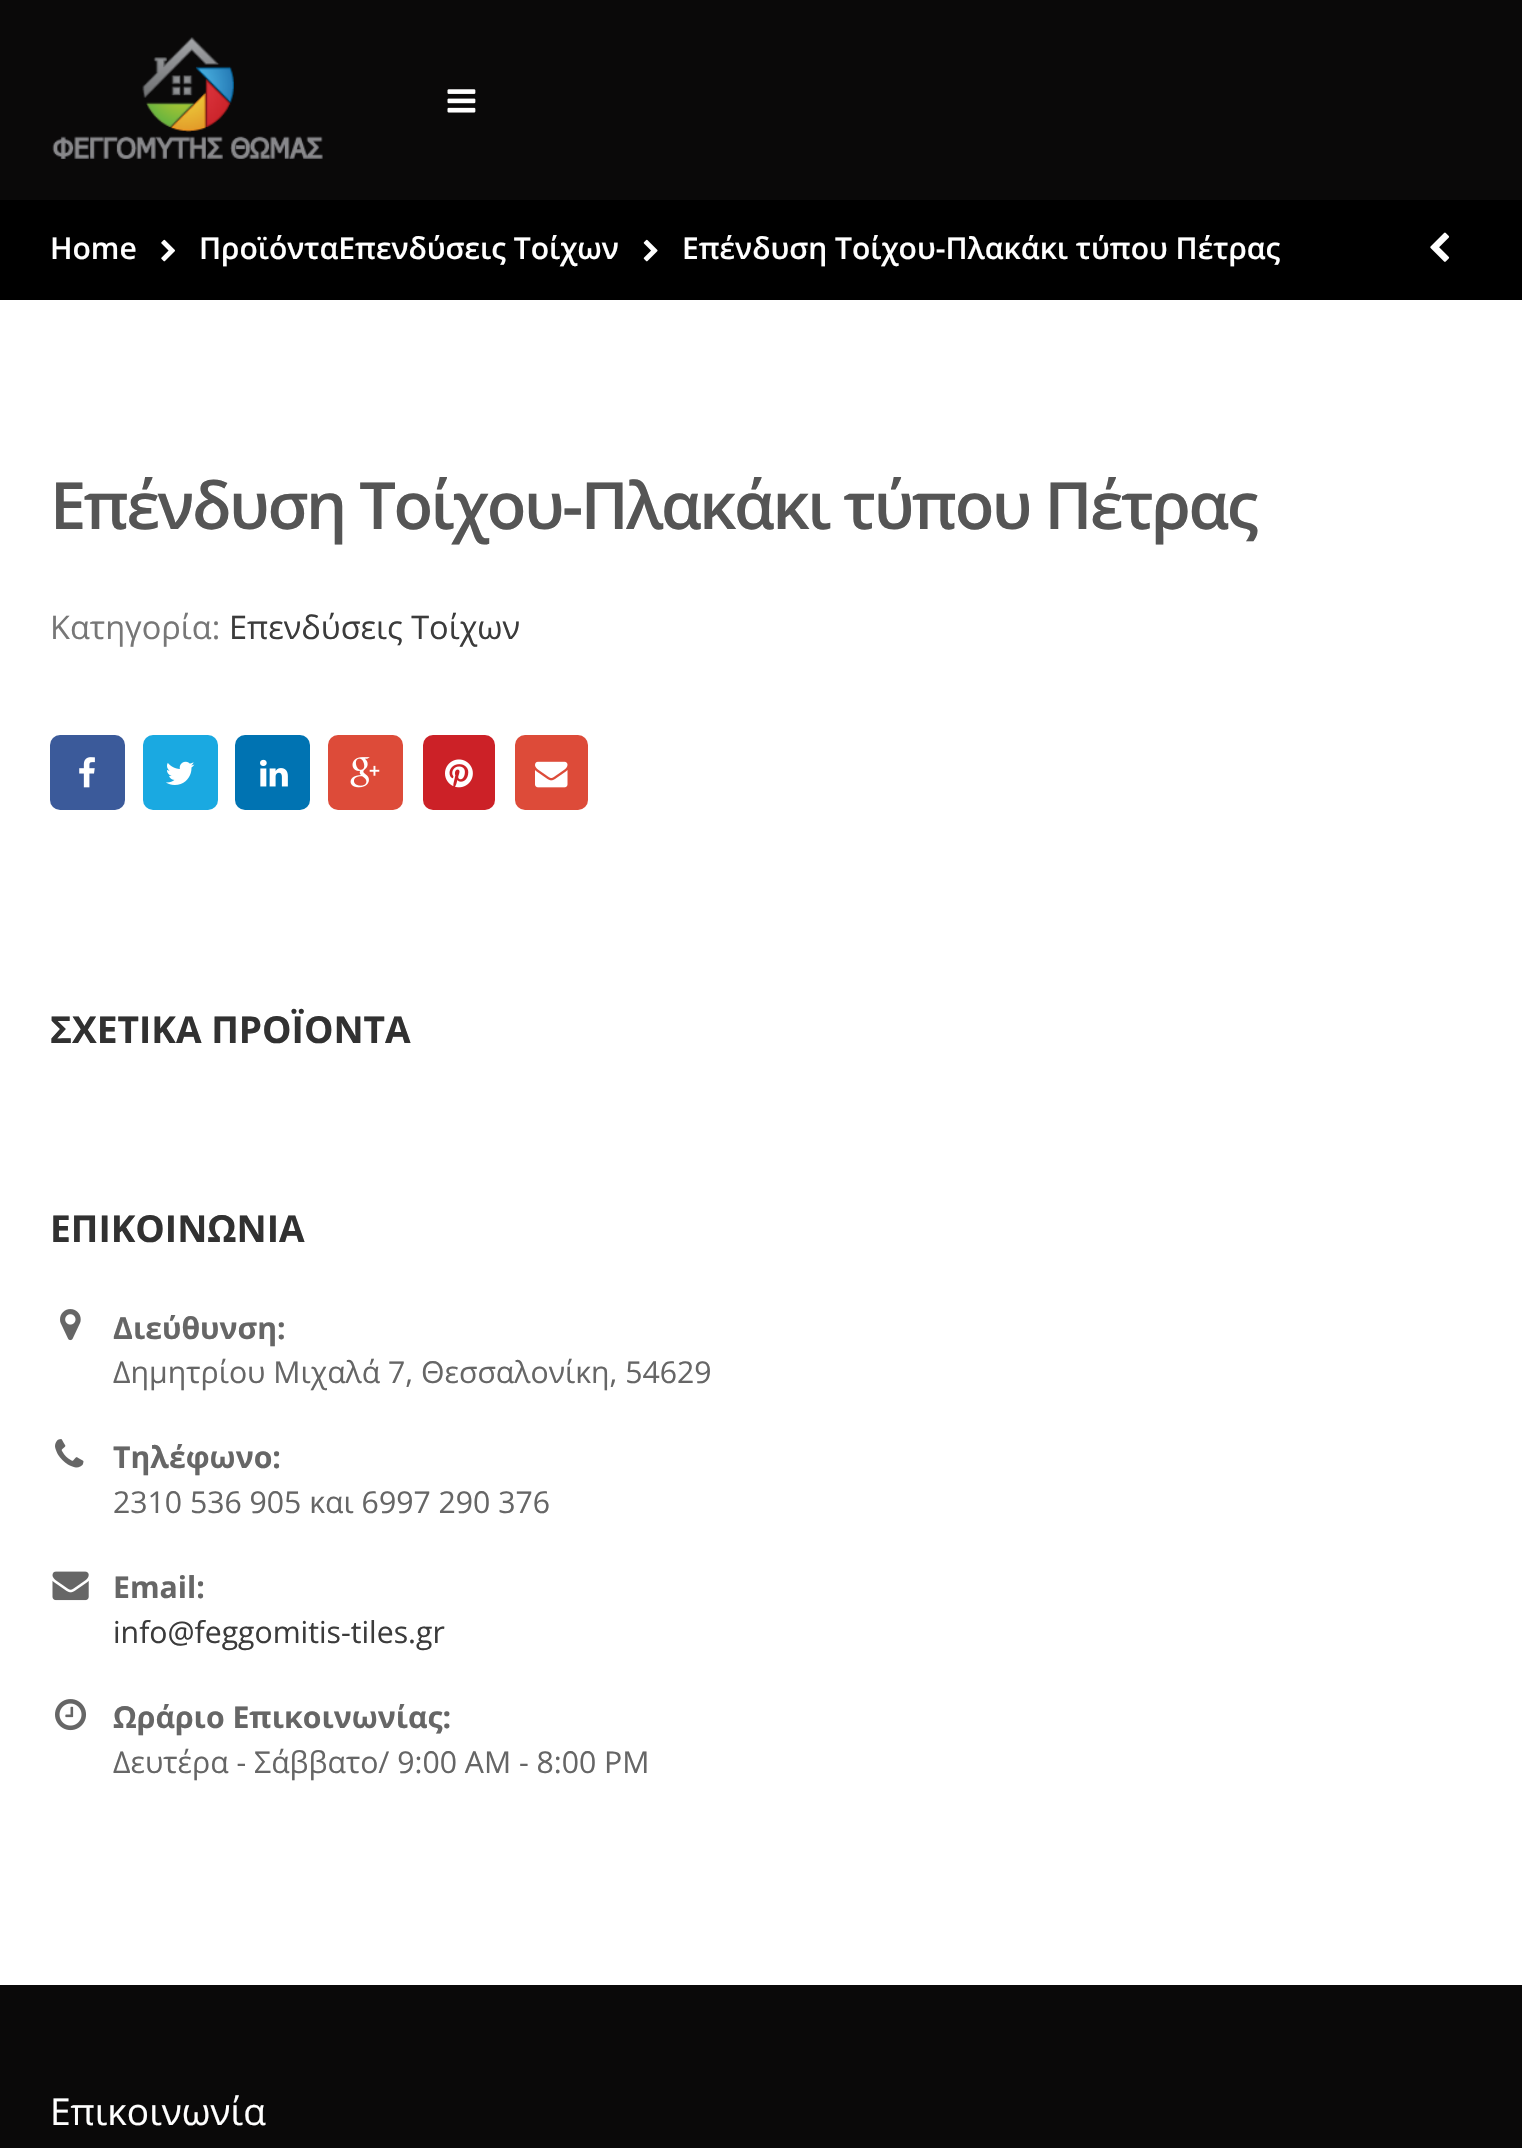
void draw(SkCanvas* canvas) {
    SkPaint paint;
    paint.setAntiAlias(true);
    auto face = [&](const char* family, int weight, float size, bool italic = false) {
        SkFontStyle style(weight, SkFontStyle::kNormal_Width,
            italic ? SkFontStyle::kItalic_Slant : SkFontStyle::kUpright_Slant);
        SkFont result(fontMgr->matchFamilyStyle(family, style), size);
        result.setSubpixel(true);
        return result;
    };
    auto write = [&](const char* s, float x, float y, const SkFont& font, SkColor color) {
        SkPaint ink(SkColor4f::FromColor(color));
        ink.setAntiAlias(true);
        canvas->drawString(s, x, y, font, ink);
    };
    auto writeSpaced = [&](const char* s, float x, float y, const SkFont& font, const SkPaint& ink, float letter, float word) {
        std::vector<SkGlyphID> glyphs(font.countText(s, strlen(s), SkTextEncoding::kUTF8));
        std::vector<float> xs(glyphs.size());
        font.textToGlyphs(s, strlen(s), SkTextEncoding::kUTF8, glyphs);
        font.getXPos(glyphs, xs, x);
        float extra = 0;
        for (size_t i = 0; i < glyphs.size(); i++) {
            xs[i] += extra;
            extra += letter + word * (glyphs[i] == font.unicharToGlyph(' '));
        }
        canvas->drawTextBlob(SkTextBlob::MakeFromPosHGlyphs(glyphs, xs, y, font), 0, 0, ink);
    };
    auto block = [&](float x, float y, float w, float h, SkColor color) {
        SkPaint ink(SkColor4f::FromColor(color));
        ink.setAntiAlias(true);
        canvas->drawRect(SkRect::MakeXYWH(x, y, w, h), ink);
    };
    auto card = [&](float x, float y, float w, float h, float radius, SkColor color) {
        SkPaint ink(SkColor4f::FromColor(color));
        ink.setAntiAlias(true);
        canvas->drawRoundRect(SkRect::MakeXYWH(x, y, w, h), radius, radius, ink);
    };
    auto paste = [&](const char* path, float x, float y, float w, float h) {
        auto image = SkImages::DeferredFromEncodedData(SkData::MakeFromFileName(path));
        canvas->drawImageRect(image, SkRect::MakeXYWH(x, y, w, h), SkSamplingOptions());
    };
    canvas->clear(SK_ColorWHITE);
    block(0, 0, 1522, 200, SkColorSetRGB(10, 9, 9));
    paste("pic1.png", 52, 37, 271, 122);
    paste("pic2.png", 447, 89, 29, 24);
    block(0, 200, 1522, 100, SK_ColorBLACK);
    auto kFont1 = face("Open Sans", 600, 30);
    write("Home", 50, 259, kFont1, SK_ColorWHITE);
    paste("pic3.png", 161, 239, 14, 23);
    write("ΠροϊόνταΕπενδύσεις Τοίχων", 199, 259, kFont1, SK_ColorWHITE);
    paste("pic4.png", 643, 239, 15, 23);
    write("Επένδυση Τοίχου-Πλακάκι τύπου Πέτρας", 682, 259, kFont1, SK_ColorWHITE);
    paste("pic5.png", 1430, 232, 20, 30);
    auto kFont2 = face("Open Sans", 600, 65);
    paint.setColor(SkColorSetRGB(85, 85, 85));
    writeSpaced("Επένδυση Τοίχου-Πλακάκι τύπου Πέτρας", 50, 529, kFont2, paint, -2.5f, 0);
    auto kFont3 = face("Open Sans", 400, 32.5f);
    write("Κατηγορία:", 50, 639, kFont3, SkColorSetRGB(119, 119, 119));
    write("Επενδύσεις Τοίχων", 229, 639, kFont3, SkColorSetRGB(59, 59, 59));
    card(50, 735, 75, 75, 10, SkColorSetRGB(59, 90, 154));
    paste("pic6.png", 79, 757, 16, 31);
    card(143, 735, 75, 75, 10, SkColorSetRGB(26, 169, 225));
    paste("pic7.png", 166, 761, 29, 24);
    card(235, 735, 75, 75, 10, SkColorSetRGB(0, 115, 178));
    paste("pic8.png", 260, 759, 28, 28);
    card(328, 735, 75, 75, 10, SkColorSetRGB(221, 75, 57));
    paste("pic9.png", 350, 757, 30, 31);
    card(423, 735, 72, 75, 10, SkColorSetRGB(204, 33, 39));
    paste("pic10.png", 445, 759, 28, 29);
    card(515, 735, 73, 75, 10, SkColorSetRGB(221, 75, 57));
    paste("pic11.png", 535, 761, 33, 27);
    auto kFont4 = face("Open Sans", 700, 37.1f);
    write("ΣΧΕΤΙΚΑ ΠΡΟΪΟΝΤΑ", 50, 1043, kFont4, SkColorSetRGB(49, 49, 49));
    write("ΕΠΙΚΟΙΝΩΝΙΑ", 50, 1242, kFont4, SkColorSetRGB(49, 49, 49));
    paste("pic12.png", 60, 1309, 21, 32);
    auto kFont5 = face("Open Sans", 700, 30.2f);
    write("Διεύθυνση:", 113, 1339, kFont5, SkColorSetRGB(102, 102, 102));
    auto kFont6 = face("Open Sans", 400, 30.2f);
    write("Δημητρίου Μιχαλά 7, Θεσσαλονίκη, 54629", 113, 1383, kFont6, SkColorSetRGB(102, 102, 102));
    paste("pic13.png", 55, 1439, 29, 29);
    write("Τηλέφωνο:", 113, 1468, kFont5, SkColorSetRGB(102, 102, 102));
    write("2310 536 905 και 6997 290 376", 113, 1513, kFont6, SkColorSetRGB(102, 102, 102));
    paste("pic14.png", 52, 1571, 37, 30);
    write("Email:", 113, 1598, kFont5, SkColorSetRGB(102, 102, 102));
    write("info@feggomitis-tiles.gr", 113, 1643, kFont6, SkColorSetRGB(59, 59, 59));
    paste("pic15.png", 55, 1699, 32, 32);
    write("Ωράριο Επικοινωνίας:", 113, 1728, kFont5, SkColorSetRGB(102, 102, 102));
    write("Δευτέρα - Σάββατο/ 9:00 AM - 8:00 PM", 113, 1773, kFont6, SkColorSetRGB(102, 102, 102));
    block(0, 1985, 1522, 163, SkColorSetRGB(10, 9, 9));
    auto kFont7 = face("Open Sans", 400, 37.1f);
    write("Επικοινωνία", 50, 2125, kFont7, SK_ColorWHITE);
}
